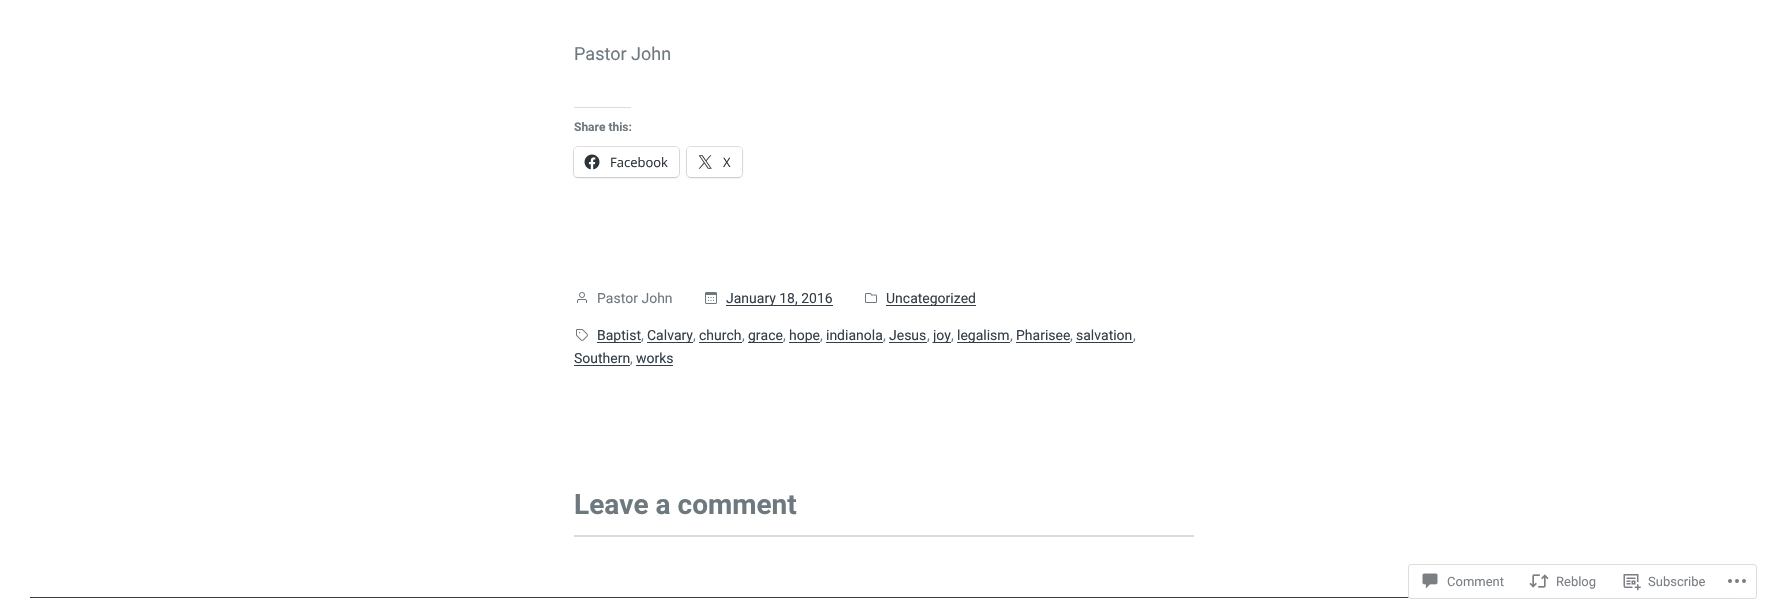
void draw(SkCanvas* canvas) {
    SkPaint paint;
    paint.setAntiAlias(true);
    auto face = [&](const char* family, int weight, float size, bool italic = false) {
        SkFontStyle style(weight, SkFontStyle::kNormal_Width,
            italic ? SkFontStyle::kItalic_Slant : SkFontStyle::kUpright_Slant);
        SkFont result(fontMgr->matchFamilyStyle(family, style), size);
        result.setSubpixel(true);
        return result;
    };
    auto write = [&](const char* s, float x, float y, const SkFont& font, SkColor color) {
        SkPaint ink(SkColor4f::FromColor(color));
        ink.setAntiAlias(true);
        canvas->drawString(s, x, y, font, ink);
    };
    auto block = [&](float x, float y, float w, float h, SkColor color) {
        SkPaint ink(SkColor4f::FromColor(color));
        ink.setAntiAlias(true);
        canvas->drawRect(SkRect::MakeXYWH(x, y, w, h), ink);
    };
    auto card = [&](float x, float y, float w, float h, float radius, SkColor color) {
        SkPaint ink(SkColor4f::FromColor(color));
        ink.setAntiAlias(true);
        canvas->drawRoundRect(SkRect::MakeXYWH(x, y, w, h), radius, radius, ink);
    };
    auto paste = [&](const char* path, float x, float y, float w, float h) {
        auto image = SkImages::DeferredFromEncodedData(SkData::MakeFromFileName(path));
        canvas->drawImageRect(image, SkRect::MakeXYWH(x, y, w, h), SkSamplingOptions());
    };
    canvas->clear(SK_ColorWHITE);
    auto kFont1 = face("Roboto", 400, 18);
    write("Pastor John", 574, 60, kFont1, SkColorSetRGB(110, 121, 127));
    block(574, 107, 57, 1, SkColorSetRGB(220, 220, 222));
    auto kFont2 = face("Roboto", 700, 12);
    write("Share this:", 574, 131, kFont2, SkColorSetRGB(110, 121, 127));
    paint.setStyle(SkPaint::kStroke_Style);
    paint.setStrokeWidth(1);
    paint.setColor(SkColorSetRGB(224, 224, 224));
    canvas->drawRoundRect(SkRect::MakeXYWH(573.5f, 146.5f, 106, 31), 4.5f, 4.5f, paint);
    paint.setStyle(SkPaint::kFill_Style);
    paint.setColor(SkColorSetARGB(31, 0, 0, 0));
    paint.setMaskFilter(SkMaskFilter::MakeBlur(kNormal_SkBlurStyle, 1));
    canvas->drawRoundRect(SkRect::MakeXYWH(574, 148, 105, 30), 4, 4, paint);
    paint.setMaskFilter(nullptr);
    card(574, 147, 105, 30, 4, SK_ColorWHITE);
    paste("pic1.png", 584, 154, 16, 16);
    auto kFont3 = face("Open Sans", 400, 13);
    write("Facebook", 610, 167, kFont3, SkColorSetRGB(44, 51, 56));
    paint.setStyle(SkPaint::kStroke_Style);
    paint.setColor(SkColorSetRGB(224, 224, 224));
    canvas->drawRoundRect(SkRect::MakeXYWH(686.5f, 146.5f, 56, 31), 4.5f, 4.5f, paint);
    paint.setStyle(SkPaint::kFill_Style);
    paint.setColor(SkColorSetARGB(31, 0, 0, 0));
    paint.setMaskFilter(SkMaskFilter::MakeBlur(kNormal_SkBlurStyle, 1));
    canvas->drawRoundRect(SkRect::MakeXYWH(687, 148, 55, 30), 4, 4, paint);
    paint.setMaskFilter(nullptr);
    card(687, 147, 55, 30, 4, SK_ColorWHITE);
    paste("pic2.png", 698, 155, 14, 14);
    write("X", 723, 167, kFont3, SkColorSetRGB(44, 51, 56));
    paste("pic3.png", 577, 292, 10, 11);
    auto kFont4 = face("Roboto", 400, 14);
    write("Pastor John", 597, 303, kFont4, SkColorSetRGB(110, 121, 127));
    paste("pic4.png", 705, 292, 12, 12);
    block(726, 305, 107, 1, SkColorSetRGB(52, 62, 71));
    write("January 18, 2016", 726, 303, kFont4, SkColorSetRGB(52, 62, 71));
    paste("pic5.png", 865, 293, 12, 10);
    block(886, 305, 90, 1, SkColorSetRGB(52, 62, 71));
    write("Uncategorized", 886, 303, kFont4, SkColorSetRGB(52, 62, 71));
    paste("pic6.png", 576, 329, 12, 12);
    block(597, 342, 44, 1, SkColorSetRGB(52, 62, 71));
    write("Baptist", 597, 340, kFont4, SkColorSetRGB(52, 62, 71));
    write(",", 641, 340, kFont4, SkColorSetRGB(110, 121, 127));
    block(647, 342, 46, 1, SkColorSetRGB(52, 62, 71));
    write("Calvary", 647, 340, kFont4, SkColorSetRGB(52, 62, 71));
    write(",", 693, 340, kFont4, SkColorSetRGB(110, 121, 127));
    write("church", 699, 340, kFont4, SkColorSetRGB(52, 62, 71));
    block(699, 342, 43, 1, SkColorSetRGB(52, 62, 71));
    write(",", 742, 340, kFont4, SkColorSetRGB(110, 121, 127));
    block(748, 342, 35, 1, SkColorSetRGB(52, 62, 71));
    write("grace", 748, 340, kFont4, SkColorSetRGB(52, 62, 71));
    write(",", 783, 340, kFont4, SkColorSetRGB(110, 121, 127));
    block(789, 342, 31, 1, SkColorSetRGB(52, 62, 71));
    write("hope", 789, 340, kFont4, SkColorSetRGB(52, 62, 71));
    write(",", 820, 340, kFont4, SkColorSetRGB(110, 121, 127));
    write("indianola", 826, 340, kFont4, SkColorSetRGB(52, 62, 71));
    block(826, 342, 57, 1, SkColorSetRGB(52, 62, 71));
    write(",", 883, 340, kFont4, SkColorSetRGB(110, 121, 127));
    write("Jesus", 889, 340, kFont4, SkColorSetRGB(52, 62, 71));
    block(889, 342, 38, 1, SkColorSetRGB(52, 62, 71));
    write(",", 927, 340, kFont4, SkColorSetRGB(110, 121, 127));
    block(933, 342, 18, 1, SkColorSetRGB(52, 62, 71));
    write("joy", 933, 340, kFont4, SkColorSetRGB(52, 62, 71));
    write(",", 951, 340, kFont4, SkColorSetRGB(110, 121, 127));
    block(957, 342, 53, 1, SkColorSetRGB(52, 62, 71));
    write("legalism", 957, 340, kFont4, SkColorSetRGB(52, 62, 71));
    write(",", 1010, 340, kFont4, SkColorSetRGB(110, 121, 127));
    write("Pharisee", 1016, 340, kFont4, SkColorSetRGB(52, 62, 71));
    block(1016, 342, 54, 1, SkColorSetRGB(52, 62, 71));
    write(",", 1070, 340, kFont4, SkColorSetRGB(110, 121, 127));
    write("salvation", 1076, 340, kFont4, SkColorSetRGB(52, 62, 71));
    block(1076, 342, 57, 1, SkColorSetRGB(52, 62, 71));
    write(",", 1133, 340, kFont4, SkColorSetRGB(110, 121, 127));
    write("Southern", 574, 363, kFont4, SkColorSetRGB(52, 62, 71));
    block(574, 365, 56, 1, SkColorSetRGB(52, 62, 71));
    write(",", 630, 363, kFont4, SkColorSetRGB(110, 121, 127));
    write("works", 636, 363, kFont4, SkColorSetRGB(52, 62, 71));
    block(636, 365, 37, 1, SkColorSetRGB(52, 62, 71));
    auto kFont5 = face("Roboto", 700, 28);
    write("Leave a comment", 574, 514, kFont5, SkColorSetRGB(110, 121, 127));
    block(574, 535, 620, 2, SkColorSetRGB(220, 220, 222));
    block(30, 597, 1707, 1, SkColorSetRGB(52, 62, 71));
    card(1408, 564, 349, 35, 3, SkColorSetARGB(250, 255, 255, 255));
    paint.setStyle(SkPaint::kStroke_Style);
    paint.setColor(SkColorSetARGB(250, 220, 220, 222));
    canvas->drawRoundRect(SkRect::MakeXYWH(1408.5f, 564.5f, 348, 34), 2.5f, 2.5f, paint);
    paste("pic7.png", 1422, 573, 16, 16);
    auto kFont6 = face("Roboto", 400, 13);
    write("Comment", 1447, 586, kFont6, SkColorSetRGB(123, 127, 133));
    paste("pic8.png", 1529, 574, 20, 14);
    write("Reblog", 1556, 586, kFont6, SkColorSetRGB(123, 127, 133));
    paste("pic9.png", 1623, 574, 18, 17);
    write("Subscribe", 1648, 586, kFont6, SkColorSetRGB(123, 127, 133));
    paste("pic10.png", 1728, 579, 18, 4);
}
